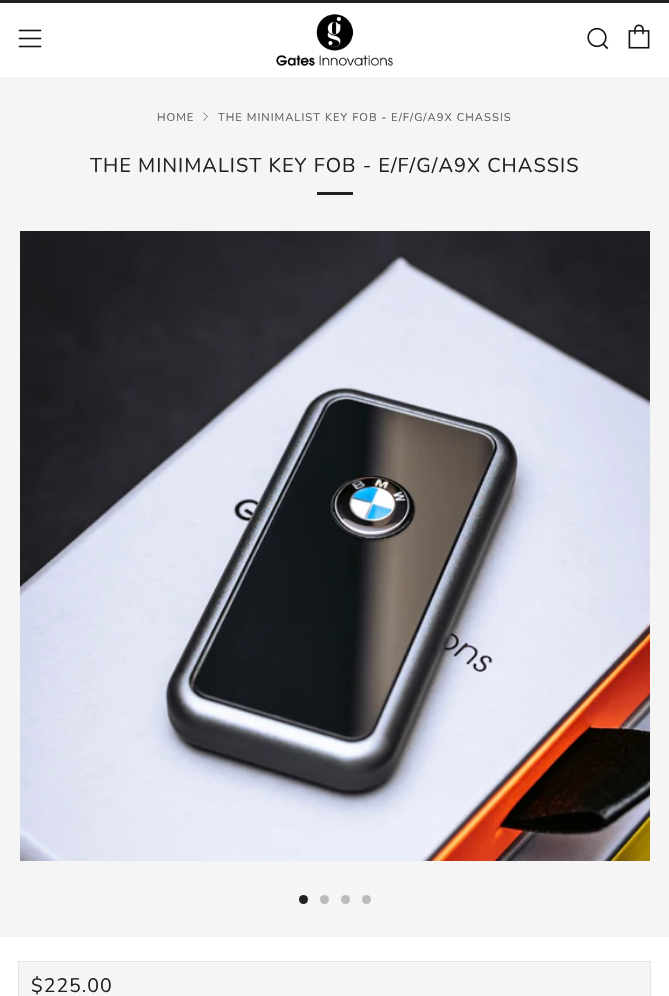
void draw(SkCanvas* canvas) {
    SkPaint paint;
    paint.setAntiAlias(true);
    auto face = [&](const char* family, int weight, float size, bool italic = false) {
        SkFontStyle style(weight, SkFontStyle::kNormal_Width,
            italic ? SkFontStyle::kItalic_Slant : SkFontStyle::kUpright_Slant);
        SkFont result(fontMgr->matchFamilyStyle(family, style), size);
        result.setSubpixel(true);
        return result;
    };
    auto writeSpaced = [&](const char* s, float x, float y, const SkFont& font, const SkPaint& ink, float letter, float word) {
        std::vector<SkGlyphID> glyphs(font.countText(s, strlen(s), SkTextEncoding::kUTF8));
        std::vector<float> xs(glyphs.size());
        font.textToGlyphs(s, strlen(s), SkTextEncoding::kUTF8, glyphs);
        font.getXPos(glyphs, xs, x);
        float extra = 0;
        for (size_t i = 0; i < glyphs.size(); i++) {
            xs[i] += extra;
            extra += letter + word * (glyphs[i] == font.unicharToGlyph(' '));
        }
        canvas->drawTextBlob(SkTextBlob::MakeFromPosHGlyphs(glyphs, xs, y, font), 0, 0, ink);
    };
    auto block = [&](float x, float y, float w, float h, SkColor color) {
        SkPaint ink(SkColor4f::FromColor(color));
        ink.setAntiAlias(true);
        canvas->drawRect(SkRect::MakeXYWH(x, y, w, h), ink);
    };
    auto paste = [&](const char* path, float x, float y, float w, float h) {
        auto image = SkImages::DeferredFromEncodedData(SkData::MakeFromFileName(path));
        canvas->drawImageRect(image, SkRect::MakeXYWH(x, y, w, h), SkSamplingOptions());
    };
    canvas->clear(SK_ColorWHITE);
    block(0, 0, 669, 3, SkColorSetRGB(33, 33, 33));
    paste("pic1.png", 18, 29, 24, 19);
    paste("pic2.png", 276, 14, 117, 52);
    paste("pic3.png", 587, 27, 22, 23);
    paste("pic4.png", 628, 24, 22, 25);
    block(0, 77, 669, 860, SkColorSetRGB(245, 245, 245));
    auto kFont1 = face("Nunito", 400, 11.25f);
    paint.setColor(SkColorSetRGB(97, 97, 97));
    writeSpaced("HOME", 157, 121, kFont1, paint, 1, 0);
    paste("pic5.png", 203, 112, 5, 9);
    writeSpaced("THE MINIMALIST KEY FOB - E/F/G/A9X CHASSIS", 218, 121, kFont1, paint, 1, 0);
    auto kFont2 = face("Nunito", 400, 20);
    paint.setColor(SkColorSetRGB(33, 33, 33));
    writeSpaced("THE MINIMALIST KEY FOB - E/F/G/A9X CHASSIS", 90, 172, kFont2, paint, 1, 0);
    block(317, 192, 36, 3, SkColorSetRGB(33, 33, 33));
    paste("pic6.png", 20, 231, 630, 630);
    canvas->drawCircle(303.5f, 899.5f, 4.5f, paint);
    paint.setColor(SkColorSetRGB(187, 187, 187));
    canvas->drawCircle(324.5f, 899.5f, 4.5f, paint);
    canvas->drawCircle(345.5f, 899.5f, 4.5f, paint);
    canvas->drawCircle(366.5f, 899.5f, 4.5f, paint);
    paint.setStyle(SkPaint::kStroke_Style);
    paint.setStrokeWidth(1);
    paint.setColor(SkColorSetRGB(228, 228, 228));
    canvas->drawRect(SkRect::MakeXYWH(18.5f, 961.5f, 632, 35), paint);
    block(19, 962, 631, 34, SkColorSetRGB(245, 245, 245));
    auto kFont3 = face("Nunito", 400, 19.5f);
    paint.setStyle(SkPaint::kFill_Style);
    paint.setColor(SkColorSetRGB(33, 33, 33));
    writeSpaced("$225.00", 31, 992, kFont3, paint, 1, 0);
}
